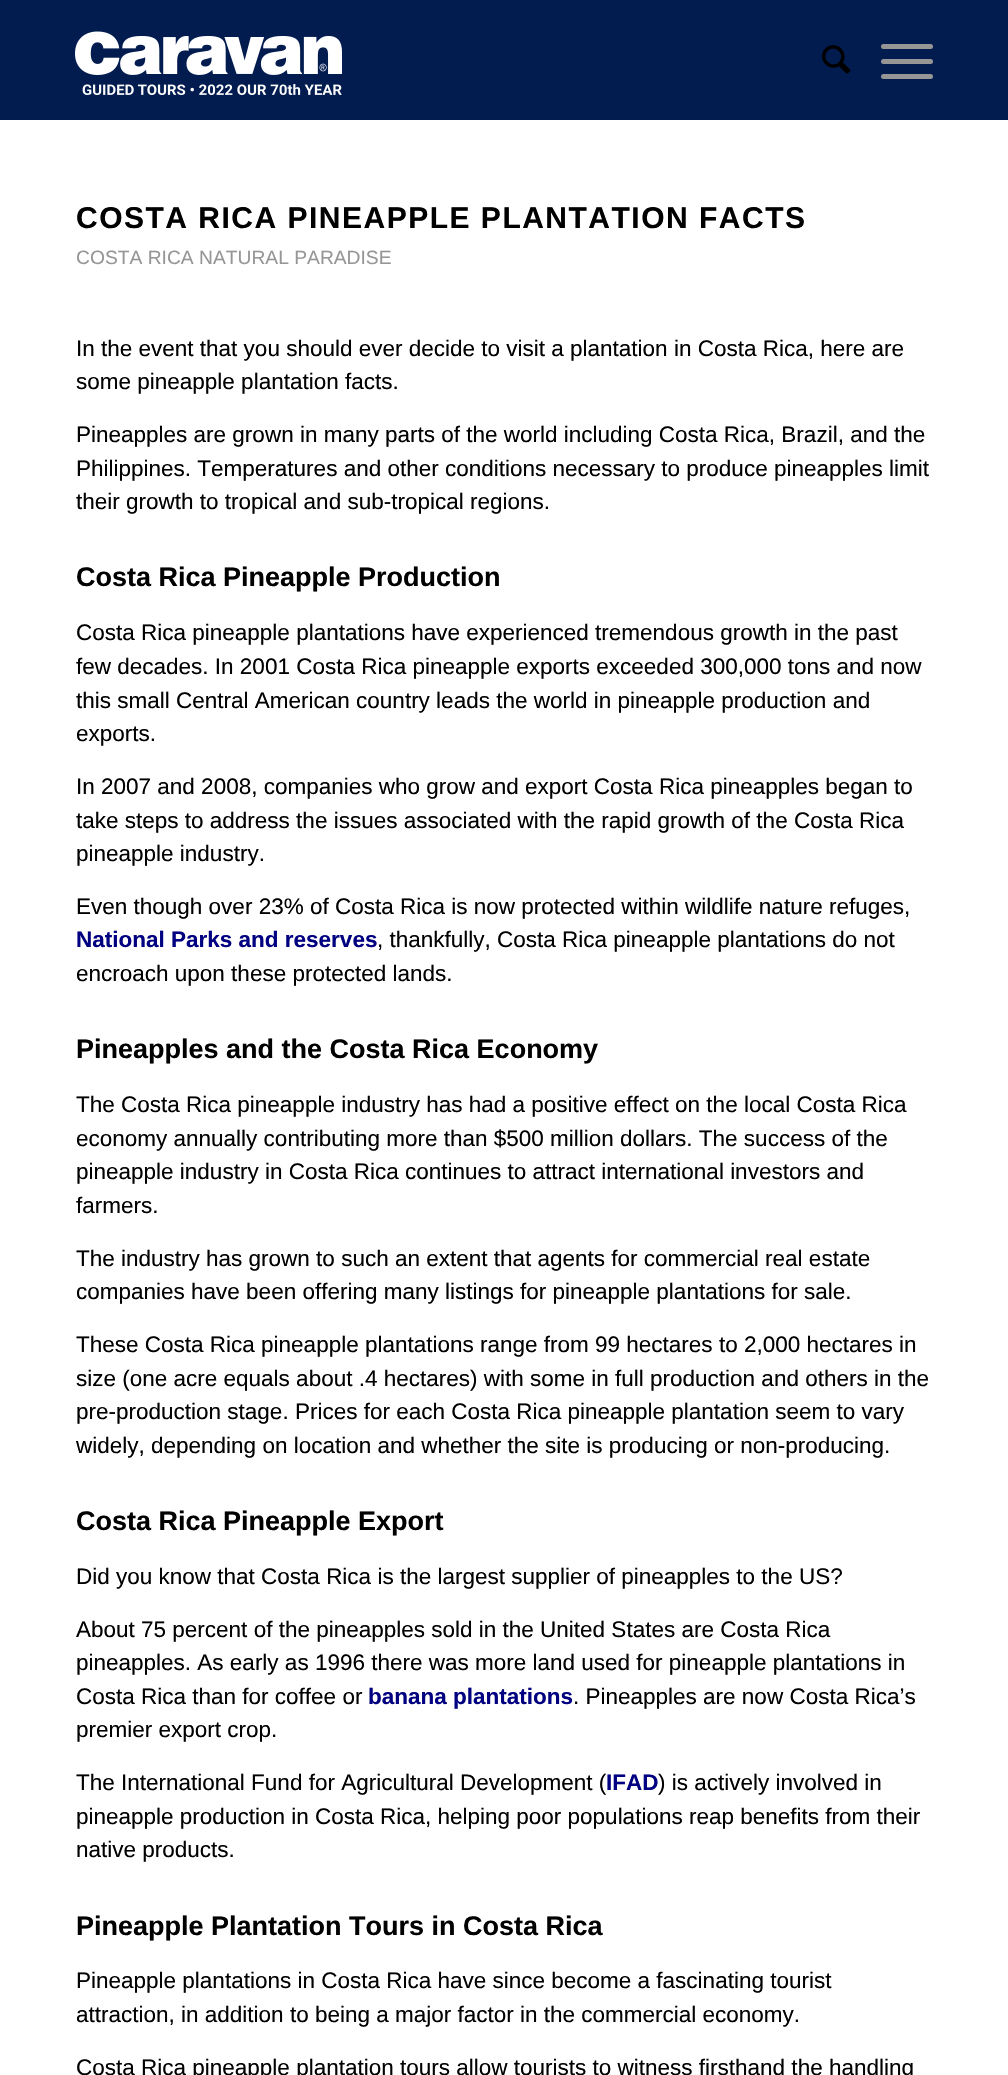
void draw(SkCanvas* canvas) {
    SkPaint paint;
    paint.setAntiAlias(true);
    auto face = [&](const char* family, int weight, float size, bool italic = false) {
        SkFontStyle style(weight, SkFontStyle::kNormal_Width,
            italic ? SkFontStyle::kItalic_Slant : SkFontStyle::kUpright_Slant);
        SkFont result(fontMgr->matchFamilyStyle(family, style), size);
        result.setSubpixel(true);
        return result;
    };
    auto write = [&](const char* s, float x, float y, const SkFont& font, SkColor color) {
        SkPaint ink(SkColor4f::FromColor(color));
        ink.setAntiAlias(true);
        canvas->drawString(s, x, y, font, ink);
    };
    auto writeSpaced = [&](const char* s, float x, float y, const SkFont& font, const SkPaint& ink, float letter, float word) {
        std::vector<SkGlyphID> glyphs(font.countText(s, strlen(s), SkTextEncoding::kUTF8));
        std::vector<float> xs(glyphs.size());
        font.textToGlyphs(s, strlen(s), SkTextEncoding::kUTF8, glyphs);
        font.getXPos(glyphs, xs, x);
        float extra = 0;
        for (size_t i = 0; i < glyphs.size(); i++) {
            xs[i] += extra;
            extra += letter + word * (glyphs[i] == font.unicharToGlyph(' '));
        }
        canvas->drawTextBlob(SkTextBlob::MakeFromPosHGlyphs(glyphs, xs, y, font), 0, 0, ink);
    };
    auto block = [&](float x, float y, float w, float h, SkColor color) {
        SkPaint ink(SkColor4f::FromColor(color));
        ink.setAntiAlias(true);
        canvas->drawRect(SkRect::MakeXYWH(x, y, w, h), ink);
    };
    auto card = [&](float x, float y, float w, float h, float radius, SkColor color) {
        SkPaint ink(SkColor4f::FromColor(color));
        ink.setAntiAlias(true);
        canvas->drawRoundRect(SkRect::MakeXYWH(x, y, w, h), radius, radius, ink);
    };
    auto paste = [&](const char* path, float x, float y, float w, float h) {
        auto image = SkImages::DeferredFromEncodedData(SkData::MakeFromFileName(path));
        canvas->drawImageRect(image, SkRect::MakeXYWH(x, y, w, h), SkSamplingOptions());
    };
    canvas->clear(SK_ColorWHITE);
    block(0, 0, 1008, 120, SkColorSetRGB(3, 28, 80));
    paste("pic1.png", 75, 31, 267, 64);
    paste("pic2.png", 822, 45, 29, 29);
    card(881, 59, 52, 5, 2.5f, SkColorSetRGB(150, 150, 150));
    card(881, 44, 52, 5, 2.5f, SkColorSetRGB(150, 150, 150));
    card(881, 74, 52, 5, 2.5f, SkColorSetRGB(150, 150, 150));
    auto kFont1 = face("Liberation Sans", 700, 30);
    paint.setColor(SK_ColorBLACK);
    writeSpaced("COSTA RICA PINEAPPLE PLANTATION FACTS", 76, 228, kFont1, paint, 1.5f, 0);
    auto kFont2 = face("Liberation Sans", 400, 19.25f);
    write("COSTA RICA NATURAL PARADISE", 76, 264, kFont2, SkColorSetRGB(150, 150, 150));
    auto kFont3 = face("Liberation Sans", 400, 22.5f);
    write("In the event that you should ever decide to visit a plantation in Costa Rica, here are", 76, 356, kFont3, SK_ColorBLACK);
    write("some pineapple plantation facts.", 76, 389, kFont3, SK_ColorBLACK);
    write("Pineapples are grown in many parts of the world including Costa Rica, Brazil, and the", 76, 442, kFont3, SK_ColorBLACK);
    write("Philippines. Temperatures and other conditions necessary to produce pineapples limit", 76, 476, kFont3, SK_ColorBLACK);
    write("their growth to tropical and sub-tropical regions.", 76, 509, kFont3, SK_ColorBLACK);
    auto kFont4 = face("Liberation Sans", 700, 27);
    write("Costa Rica Pineapple Production", 76, 586, kFont4, SK_ColorBLACK);
    write("Costa Rica pineapple plantations have experienced tremendous growth in the past", 76, 640, kFont3, SK_ColorBLACK);
    write("few decades. In 2001 Costa Rica pineapple exports exceeded 300,000 tons and now", 76, 674, kFont3, SK_ColorBLACK);
    write("this small Central American country leads the world in pineapple production and", 76, 708, kFont3, SK_ColorBLACK);
    write("exports.", 76, 741, kFont3, SK_ColorBLACK);
    write("In 2007 and 2008, companies who grow and export Costa Rica pineapples began to", 76, 794, kFont3, SK_ColorBLACK);
    write("take steps to address the issues associated with the rapid growth of the Costa Rica", 76, 828, kFont3, SK_ColorBLACK);
    write("pineapple industry.", 76, 861, kFont3, SK_ColorBLACK);
    write("Even though over 23% of Costa Rica is now protected within wildlife nature refuges,", 76, 914, kFont3, SK_ColorBLACK);
    auto kFont5 = face("Liberation Sans", 700, 22.5f);
    write("National Parks and reserves", 76, 947, kFont5, SkColorSetRGB(0, 0, 128));
    write(", thankfully, Costa Rica pineapple plantations do not", 377, 947, kFont3, SK_ColorBLACK);
    write("encroach upon these protected lands.", 76, 981, kFont3, SK_ColorBLACK);
    write("Pineapples and the Costa Rica Economy", 76, 1058, kFont4, SK_ColorBLACK);
    write("The Costa Rica pineapple industry has had a positive effect on the local Costa Rica", 76, 1112, kFont3, SK_ColorBLACK);
    write("economy annually contributing more than $500 million dollars. The success of the", 76, 1146, kFont3, SK_ColorBLACK);
    write("pineapple industry in Costa Rica continues to attract international investors and", 76, 1179, kFont3, SK_ColorBLACK);
    write("farmers.", 76, 1213, kFont3, SK_ColorBLACK);
    write("The industry has grown to such an extent that agents for commercial real estate", 76, 1266, kFont3, SK_ColorBLACK);
    write("companies have been offering many listings for pineapple plantations for sale.", 76, 1299, kFont3, SK_ColorBLACK);
    write("These Costa Rica pineapple plantations range from 99 hectares to 2,000 hectares in", 76, 1352, kFont3, SK_ColorBLACK);
    write("size (one acre equals about .4 hectares) with some in full production and others in the", 76, 1386, kFont3, SK_ColorBLACK);
    write("pre-production stage. Prices for each Costa Rica pineapple plantation seem to vary", 76, 1419, kFont3, SK_ColorBLACK);
    write("widely, depending on location and whether the site is producing or non-producing.", 76, 1453, kFont3, SK_ColorBLACK);
    write("Costa Rica Pineapple Export", 76, 1530, kFont4, SK_ColorBLACK);
    write("Did you know that Costa Rica is the largest supplier of pineapples to the US?", 76, 1584, kFont3, SK_ColorBLACK);
    write("About 75 percent of the pineapples sold in the United States are Costa Rica", 76, 1637, kFont3, SK_ColorBLACK);
    write("pineapples. As early as 1996 there was more land used for pineapple plantations in", 76, 1670, kFont3, SK_ColorBLACK);
    write("Costa Rica than for coffee or", 76, 1704, kFont3, SK_ColorBLACK);
    write("banana plantations", 368, 1704, kFont5, SkColorSetRGB(0, 0, 128));
    write(". Pineapples are now Costa Rica’s", 573, 1704, kFont3, SK_ColorBLACK);
    write("premier export crop.", 76, 1737, kFont3, SK_ColorBLACK);
    write("The International Fund for Agricultural Development (", 76, 1790, kFont3, SK_ColorBLACK);
    write("IFAD", 606, 1790, kFont5, SkColorSetRGB(0, 0, 128));
    write(") is actively involved in", 658, 1790, kFont3, SK_ColorBLACK);
    write("pineapple production in Costa Rica, helping poor populations reap benefits from their", 76, 1824, kFont3, SK_ColorBLACK);
    write("native products.", 76, 1857, kFont3, SK_ColorBLACK);
    write("Pineapple Plantation Tours in Costa Rica", 76, 1935, kFont4, SK_ColorBLACK);
    write("Pineapple plantations in Costa Rica have since become a fascinating tourist", 76, 1988, kFont3, SK_ColorBLACK);
    write("attraction, in addition to being a major factor in the commercial economy.", 76, 2022, kFont3, SK_ColorBLACK);
    write("Costa Rica pineapple plantation tours allow tourists to witness firsthand the handling", 76, 2075, kFont3, SK_ColorBLACK);
}
